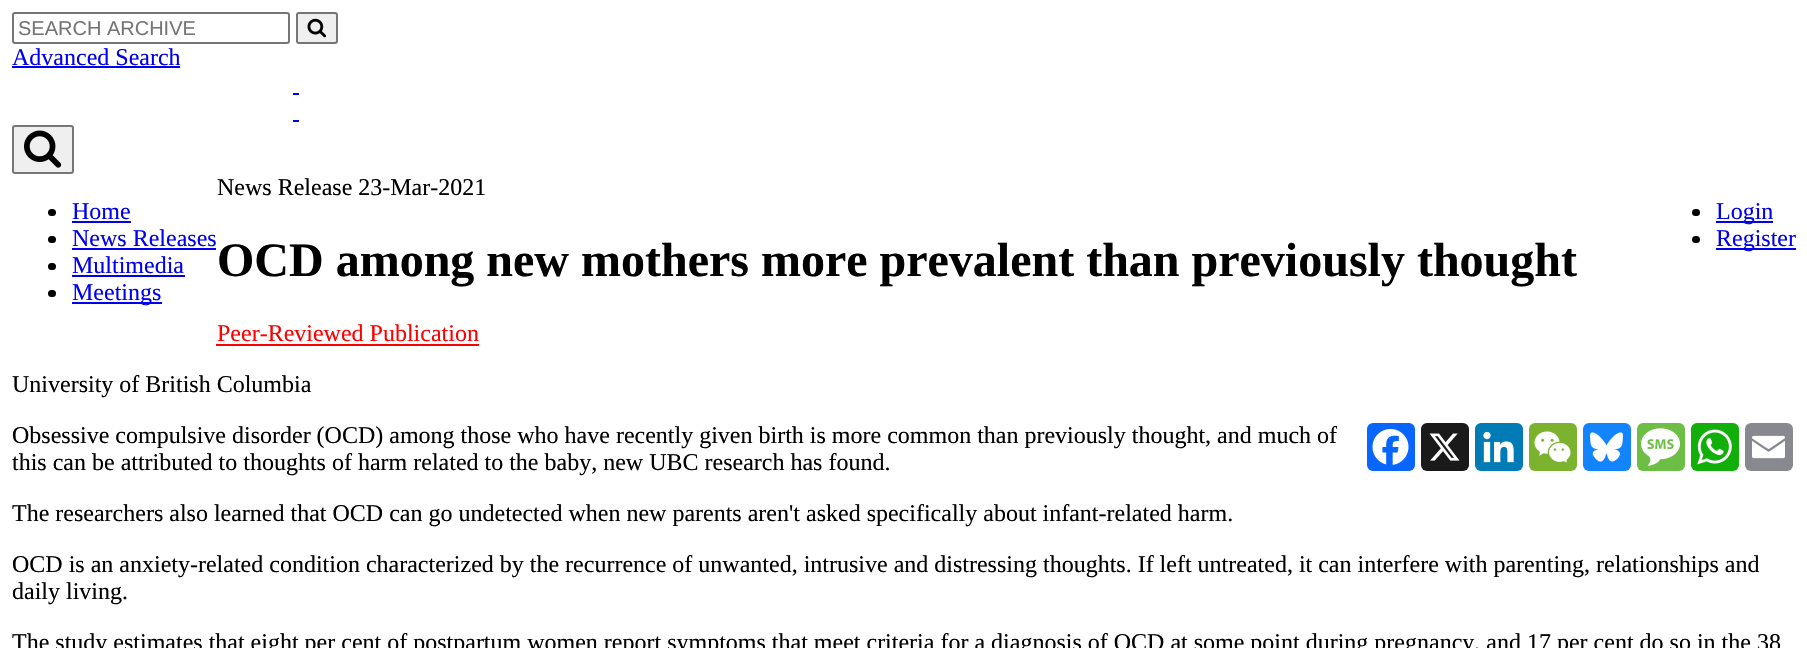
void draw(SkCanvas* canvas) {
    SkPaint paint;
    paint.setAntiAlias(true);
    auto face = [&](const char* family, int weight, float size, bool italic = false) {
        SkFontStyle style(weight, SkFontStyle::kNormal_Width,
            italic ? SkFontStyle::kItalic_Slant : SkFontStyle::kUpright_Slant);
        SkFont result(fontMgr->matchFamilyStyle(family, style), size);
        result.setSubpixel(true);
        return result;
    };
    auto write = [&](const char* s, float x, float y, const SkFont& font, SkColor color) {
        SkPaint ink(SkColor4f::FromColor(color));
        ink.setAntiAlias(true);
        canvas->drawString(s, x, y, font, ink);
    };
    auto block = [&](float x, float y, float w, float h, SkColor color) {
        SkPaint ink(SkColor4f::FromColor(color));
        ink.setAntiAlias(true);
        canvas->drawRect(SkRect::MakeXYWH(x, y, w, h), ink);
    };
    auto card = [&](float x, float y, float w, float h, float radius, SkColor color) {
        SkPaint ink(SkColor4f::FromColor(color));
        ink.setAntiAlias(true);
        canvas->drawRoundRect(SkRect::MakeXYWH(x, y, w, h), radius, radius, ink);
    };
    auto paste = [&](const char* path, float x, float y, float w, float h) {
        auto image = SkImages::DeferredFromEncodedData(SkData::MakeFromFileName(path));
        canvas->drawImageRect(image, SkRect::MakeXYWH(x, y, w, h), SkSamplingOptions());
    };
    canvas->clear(SK_ColorWHITE);
    paint.setStyle(SkPaint::kStroke_Style);
    paint.setStrokeWidth(2);
    paint.setColor(SkColorSetRGB(118, 118, 118));
    canvas->drawRoundRect(SkRect::MakeXYWH(13, 13, 276, 30), 2, 2, paint);
    auto kFont1 = face("Liberation Sans", 400, 20);
    write("SEARCH ARCHIVE", 18, 35, kFont1, SkColorSetRGB(117, 117, 117));
    paint.setStyle(SkPaint::kFill_Style);
    paint.setColor(SkColorSetRGB(239, 239, 239));
    canvas->drawRoundRect(SkRect::MakeXYWH(297, 13, 40, 30), 2, 2, paint);
    paint.setStyle(SkPaint::kStroke_Style);
    paint.setColor(SkColorSetRGB(118, 118, 118));
    canvas->drawRoundRect(SkRect::MakeXYWH(297, 13, 40, 30), 2, 2, paint);
    paste("pic1.png", 307, 18, 19, 20);
    auto kFont2 = face("Liberation Serif", 400, 24);
    write("Advanced Search", 12, 65, kFont2, SkColorSetRGB(0, 0, 238));
    block(12, 66, 168, 2, SkColorSetRGB(0, 0, 238));
    block(293, 93, 6, 2, SkColorSetRGB(0, 0, 238));
    block(293, 120, 6, 2, SkColorSetRGB(0, 0, 238));
    paint.setStyle(SkPaint::kFill_Style);
    paint.setColor(SkColorSetRGB(239, 239, 239));
    canvas->drawRoundRect(SkRect::MakeXYWH(13, 126, 60, 47), 2, 2, paint);
    paint.setStyle(SkPaint::kStroke_Style);
    paint.setColor(SkColorSetRGB(118, 118, 118));
    canvas->drawRoundRect(SkRect::MakeXYWH(13, 126, 60, 47), 2, 2, paint);
    paste("pic2.png", 24, 130, 38, 38);
    card(48, 209, 8, 7, 3.5f, SK_ColorBLACK);
    write("Home", 72, 219, kFont2, SkColorSetRGB(0, 0, 238));
    block(72, 221, 59, 2, SkColorSetRGB(0, 0, 238));
    card(48, 236, 8, 7, 3.5f, SK_ColorBLACK);
    write("News Releases", 72, 246, kFont2, SkColorSetRGB(0, 0, 238));
    block(72, 248, 144, 2, SkColorSetRGB(0, 0, 238));
    card(48, 263, 8, 7, 3.5f, SK_ColorBLACK);
    write("Multimedia", 72, 273, kFont2, SkColorSetRGB(0, 0, 238));
    block(72, 275, 113, 2, SkColorSetRGB(0, 0, 238));
    card(48, 290, 8, 7, 3.5f, SK_ColorBLACK);
    block(72, 302, 90, 2, SkColorSetRGB(0, 0, 238));
    write("Meetings", 72, 300, kFont2, SkColorSetRGB(0, 0, 238));
    card(1692, 209, 8, 7, 3.5f, SK_ColorBLACK);
    block(1716, 221, 57, 2, SkColorSetRGB(0, 0, 238));
    write("Login", 1716, 219, kFont2, SkColorSetRGB(0, 0, 238));
    card(1692, 236, 8, 7, 3.5f, SK_ColorBLACK);
    block(1716, 248, 80, 2, SkColorSetRGB(0, 0, 238));
    write("Register", 1716, 246, kFont2, SkColorSetRGB(0, 0, 238));
    write("News Release 23-Mar-2021", 217, 195, kFont2, SK_ColorBLACK);
    auto kFont3 = face("Liberation Serif", 700, 48);
    write("OCD among new mothers more prevalent than previously thought", 217, 276, kFont3, SK_ColorBLACK);
    write("Peer-Reviewed Publication", 217, 341, kFont2, SkColorSetRGB(255, 0, 0));
    block(216, 344, 263, 2, SkColorSetRGB(255, 0, 0));
    write("University of British Columbia", 12, 392, kFont2, SK_ColorBLACK);
    card(1367, 423, 48, 48, 6, SkColorSetRGB(8, 102, 255));
    paste("pic3.png", 1372, 429, 37, 36);
    card(1421, 423, 48, 48, 6, SkColorSetRGB(26, 26, 26));
    paste("pic4.png", 1429, 433, 31, 28);
    card(1475, 423, 48, 48, 6, SkColorSetRGB(0, 123, 181));
    paste("pic5.png", 1483, 431, 31, 32);
    card(1529, 423, 48, 48, 6, SkColorSetRGB(123, 179, 46));
    paste("pic6.png", 1534, 431, 37, 32);
    card(1583, 423, 48, 48, 6, SkColorSetRGB(18, 133, 254));
    paste("pic7.png", 1590, 432, 33, 30);
    card(1637, 423, 48, 48, 6, SkColorSetRGB(108, 190, 69));
    paste("pic8.png", 1641, 428, 39, 38);
    card(1691, 423, 48, 48, 6, SkColorSetRGB(18, 175, 10));
    paste("pic9.png", 1697, 429, 35, 36);
    card(1745, 423, 48, 48, 6, SkColorSetRGB(136, 137, 144));
    paste("pic10.png", 1752, 435, 33, 24);
    write("Obsessive compulsive disorder (OCD) among those who have recently given birth is more common than previously thought, and much of", 12, 443, kFont2, SK_ColorBLACK);
    write("this can be attributed to thoughts of harm related to the baby, new UBC research has found.", 12, 470, kFont2, SK_ColorBLACK);
    write("The researchers also learned that OCD can go undetected when new parents aren't asked specifically about infant-related harm.", 12, 521, kFont2, SK_ColorBLACK);
    write("OCD is an anxiety-related condition characterized by the recurrence of unwanted, intrusive and distressing thoughts. If left untreated, it can interfere with parenting, relationships and", 12, 572, kFont2, SK_ColorBLACK);
    write("daily living.", 12, 599, kFont2, SK_ColorBLACK);
    write("The study estimates that eight per cent of postpartum women report symptoms that meet criteria for a diagnosis of OCD at some point during pregnancy, and 17 per cent do so in the 38", 12, 650, kFont2, SK_ColorBLACK);
}
